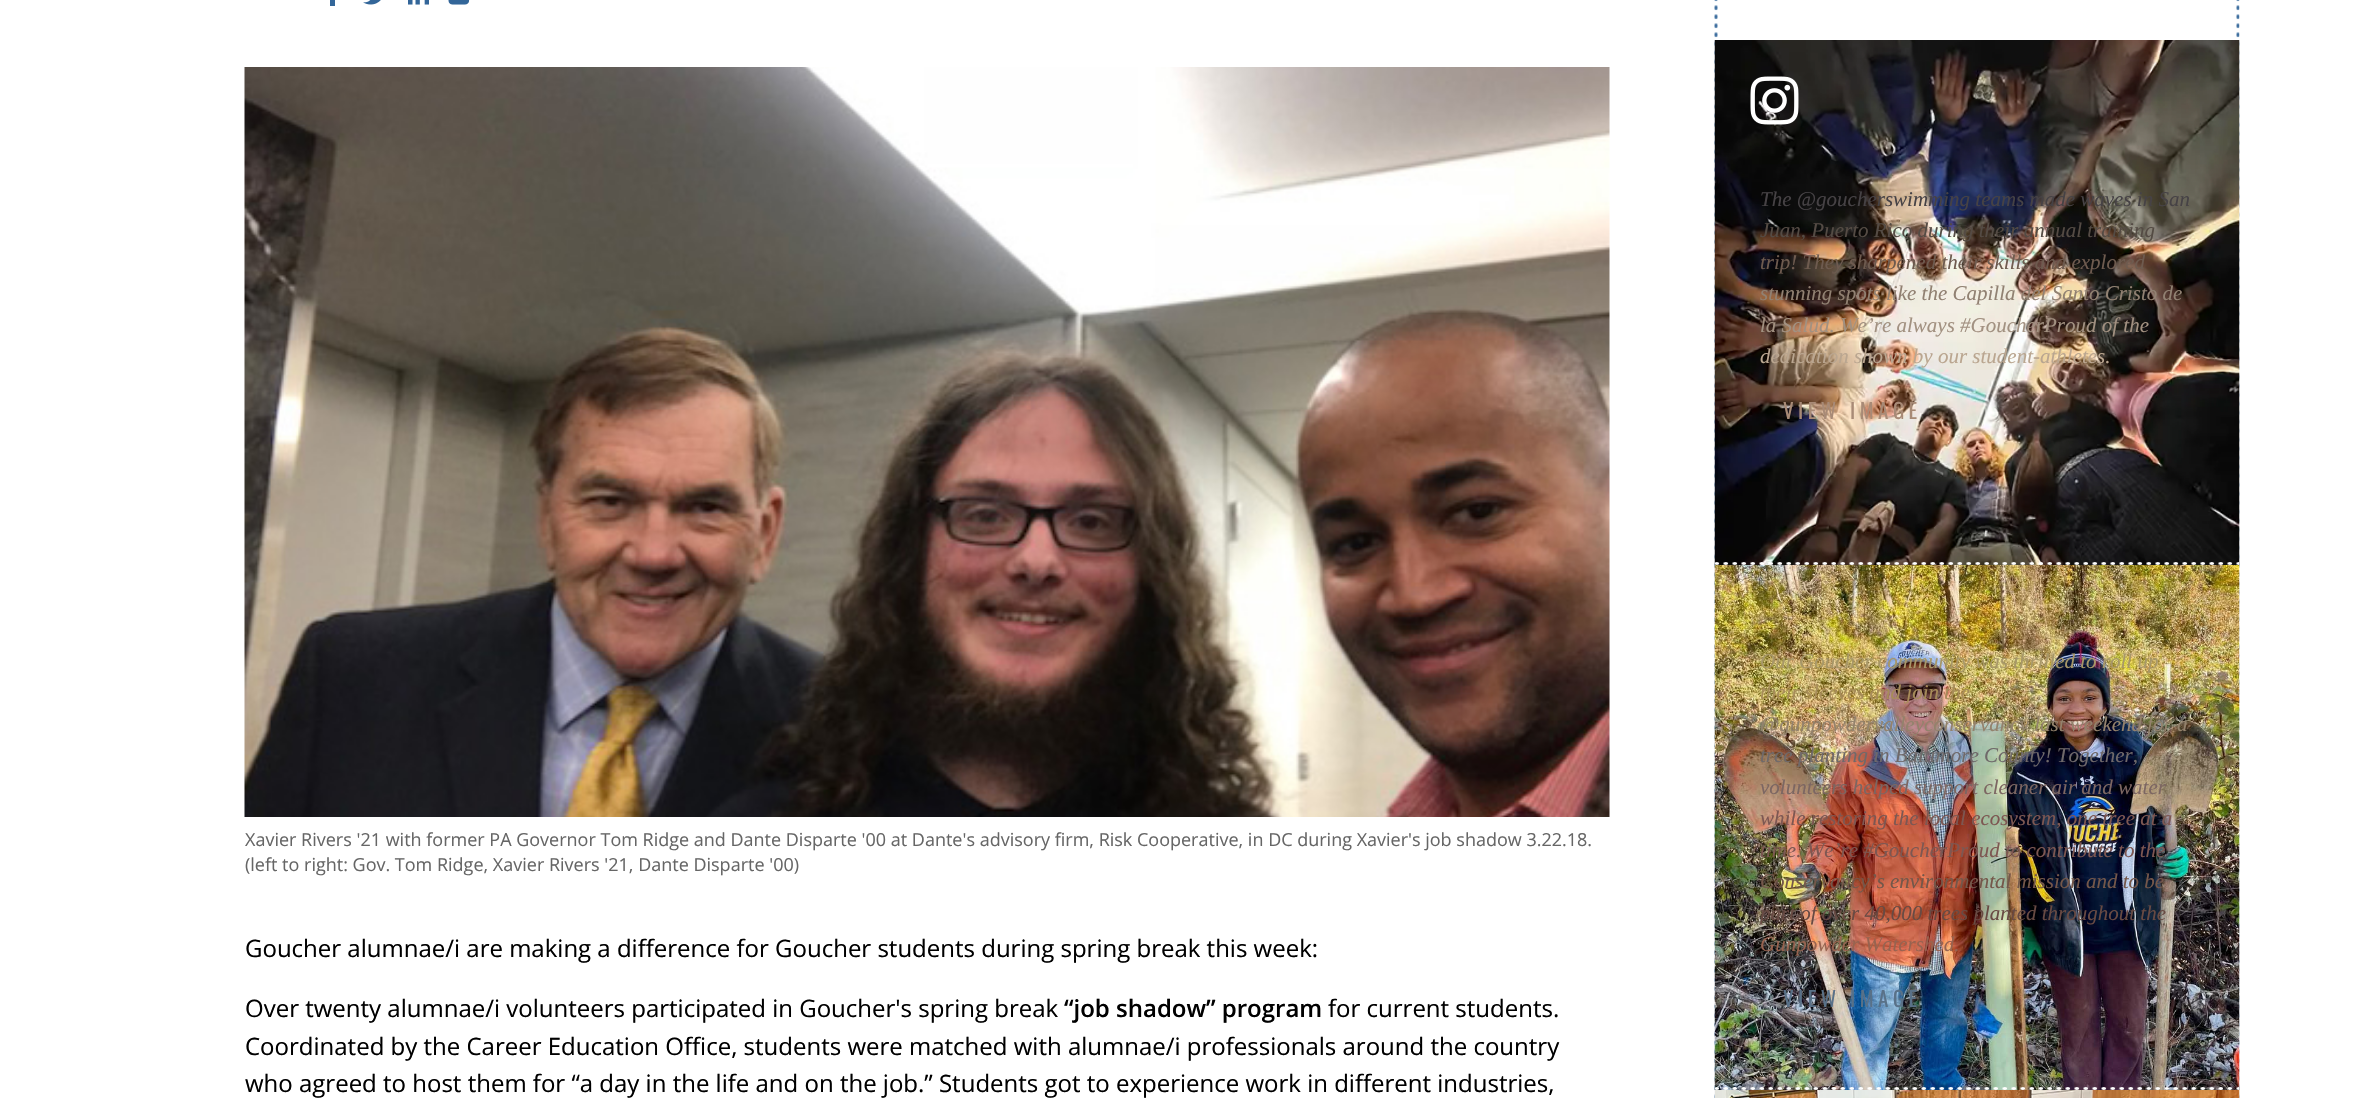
void draw(SkCanvas* canvas) {
    SkPaint paint;
    paint.setAntiAlias(true);
    auto face = [&](const char* family, int weight, float size, bool italic = false) {
        SkFontStyle style(weight, SkFontStyle::kNormal_Width,
            italic ? SkFontStyle::kItalic_Slant : SkFontStyle::kUpright_Slant);
        SkFont result(fontMgr->matchFamilyStyle(family, style), size);
        result.setSubpixel(true);
        return result;
    };
    auto write = [&](const char* s, float x, float y, const SkFont& font, SkColor color) {
        SkPaint ink(SkColor4f::FromColor(color));
        ink.setAntiAlias(true);
        canvas->drawString(s, x, y, font, ink);
    };
    auto writeSpaced = [&](const char* s, float x, float y, const SkFont& font, const SkPaint& ink, float letter, float word) {
        std::vector<SkGlyphID> glyphs(font.countText(s, strlen(s), SkTextEncoding::kUTF8));
        std::vector<float> xs(glyphs.size());
        font.textToGlyphs(s, strlen(s), SkTextEncoding::kUTF8, glyphs);
        font.getXPos(glyphs, xs, x);
        float extra = 0;
        for (size_t i = 0; i < glyphs.size(); i++) {
            xs[i] += extra;
            extra += letter + word * (glyphs[i] == font.unicharToGlyph(' '));
        }
        canvas->drawTextBlob(SkTextBlob::MakeFromPosHGlyphs(glyphs, xs, y, font), 0, 0, ink);
    };
    auto block = [&](float x, float y, float w, float h, SkColor color) {
        SkPaint ink(SkColor4f::FromColor(color));
        ink.setAntiAlias(true);
        canvas->drawRect(SkRect::MakeXYWH(x, y, w, h), ink);
    };
    auto paste = [&](const char* path, float x, float y, float w, float h) {
        auto image = SkImages::DeferredFromEncodedData(SkData::MakeFromFileName(path));
        canvas->drawImageRect(image, SkRect::MakeXYWH(x, y, w, h), SkSamplingOptions());
    };
    canvas->clear(SK_ColorWHITE);
    block(330, 0, 5, 6, SkColorSetRGB(51, 102, 153));
    paste("pic1.png", 363, 0, 18, 5);
    paste("pic2.png", 408, 0, 21, 5);
    paste("pic3.png", 448, 0, 22, 5);
    paste("pic4.png", 244, 67, 1366, 750);
    auto kFont1 = face("Open Sans", 400, 18);
    write("Xavier Rivers '21 with former PA Governor Tom Ridge and Dante Disparte '00 at Dante's advisory firm, Risk Cooperative, in DC during Xavier's job shadow 3.22.18.", 245, 846, kFont1, SkColorSetRGB(102, 102, 102));
    write("(left to right: Gov. Tom Ridge, Xavier Rivers '21, Dante Disparte '00)", 245, 871, kFont1, SkColorSetRGB(102, 102, 102));
    auto kFont2 = face("Open Sans", 400, 24);
    write("Goucher alumnae/i are making a difference for Goucher students during spring break this week:", 245, 957, kFont2, SK_ColorBLACK);
    write("Over twenty alumnae/i volunteers participated in Goucher's spring break", 245, 1017, kFont2, SK_ColorBLACK);
    auto kFont3 = face("Open Sans", 600, 24);
    write("“job shadow” program", 1064, 1017, kFont3, SK_ColorBLACK);
    write("for current students.", 1328, 1017, kFont2, SK_ColorBLACK);
    write("Coordinated by the Career Education Office, students were matched with alumnae/i professionals around the country", 245, 1055, kFont2, SK_ColorBLACK);
    write("who agreed to host them for “a day in the life and on the job.” Students got to experience work in different industries,", 245, 1092, kFont2, SK_ColorBLACK);
    paste("pic5.png", 1714, 0, 4, 1098);
    paste("pic12.png", 2236, 0, 4, 1098);
    paste("pic7.png", 1714, 40, 526, 525);
    paste("pic6.png", 1750, 76, 49, 49);
    auto kFont4 = face("Liberation Serif", 400, 21, true);
    write("The @goucherswimming teams made waves in San", 1760, 206, kFont4, SkColorSetRGB(70, 66, 69));
    write("Juan, Puerto Rico during their annual training", 1760, 237, kFont4, SkColorSetRGB(84, 75, 68));
    write("trip! They sharpened their skills and explored", 1760, 269, kFont4, SkColorSetRGB(110, 91, 79));
    write("stunning spots like the Capilla del Santo Cristo de", 1760, 300, kFont4, SkColorSetRGB(145, 129, 114));
    write("la Salud. We’re always #GoucherProud of the", 1760, 332, kFont4, SkColorSetRGB(162, 145, 129));
    write("dedication shown by our student-athletes.", 1760, 363, kFont4, SkColorSetRGB(186, 166, 144));
    auto kFont5 = face("Oswald", 400, 21);
    paint.setColor(SkColorSetRGB(168, 138, 118));
    writeSpaced("VIEW IMAGE", 1783, 419, kFont5, paint, 4.5f, 0);
    paste("pic8.png", 1714, 562, 526, 3);
    paste("pic9.png", 1714, 565, 526, 525);
    write("Our Goucher community was thrilled to roll up", 1760, 668, kFont4, SkColorSetRGB(167, 151, 104));
    write("their sleeves and join the", 1760, 699, kFont4, SkColorSetRGB(167, 140, 89));
    write("@gunpowdervalleyconservancy last weekend for a", 1760, 731, kFont4, SkColorSetRGB(147, 130, 108));
    write("tree planting in Baltimore County! Together,", 1760, 762, kFont4, SkColorSetRGB(111, 105, 106));
    write("volunteers helped support cleaner air and water", 1760, 794, kFont4, SkColorSetRGB(124, 102, 98));
    write("while restoring the local ecosystem, one tree at a", 1760, 825, kFont4, SkColorSetRGB(125, 87, 82));
    write("time. We’re #GoucherProud to contribute to the", 1760, 857, kFont4, SkColorSetRGB(125, 87, 82));
    write("Conservancy’s environmental mission and to be", 1760, 888, kFont4, SkColorSetRGB(116, 87, 74));
    write("part of over 40,000 trees planted throughout the", 1760, 920, kFont4, SkColorSetRGB(104, 74, 67));
    write("Gunpowder Watershed.", 1760, 951, kFont4, SkColorSetRGB(151, 99, 80));
    paint.setColor(SkColorSetRGB(89, 113, 136));
    writeSpaced("VIEW IMAGE", 1783, 1007, kFont5, paint, 4.5f, 0);
    paste("pic10.png", 1714, 1087, 526, 3);
    paste("pic11.png", 1714, 1090, 526, 8);
}
